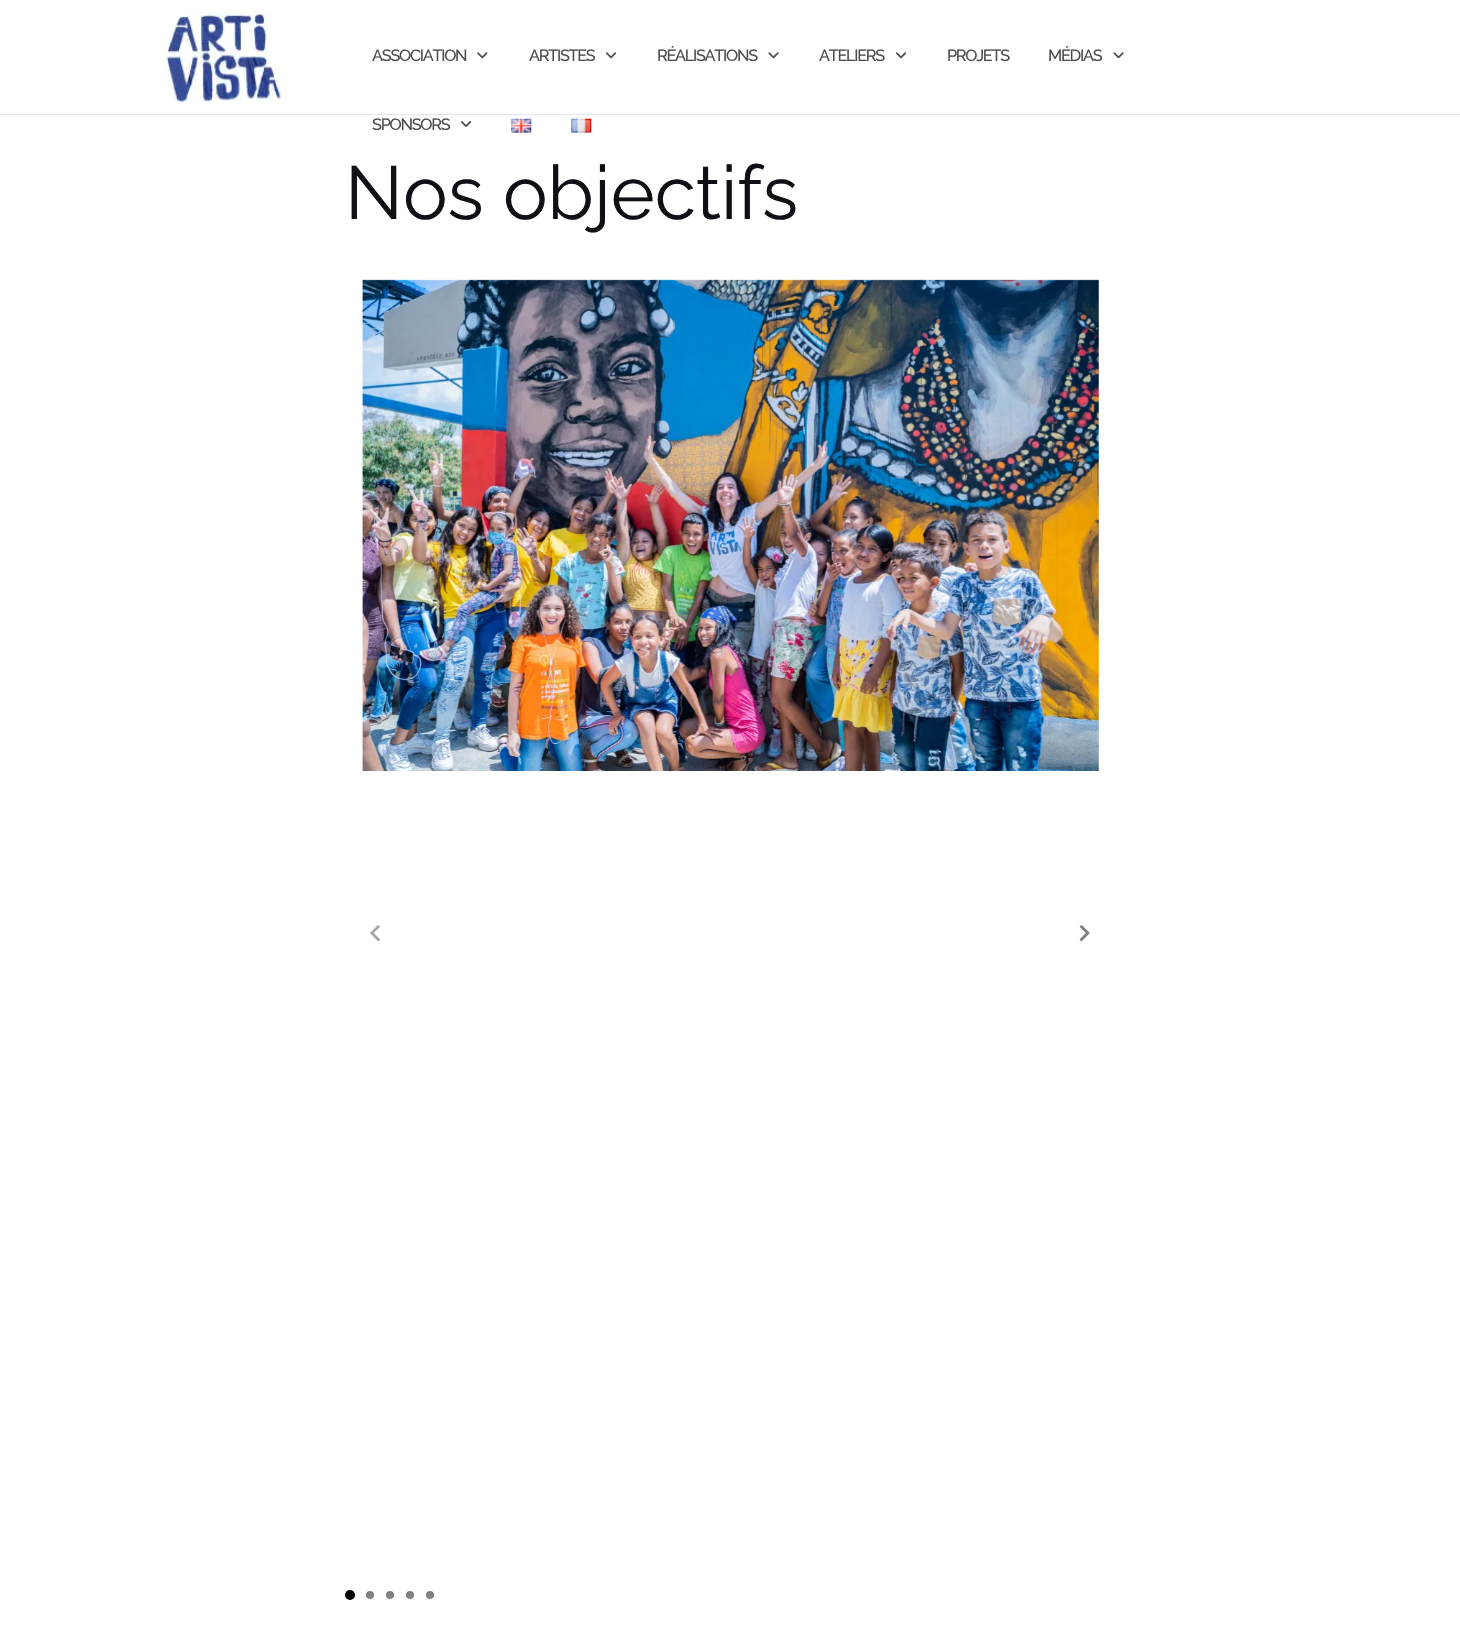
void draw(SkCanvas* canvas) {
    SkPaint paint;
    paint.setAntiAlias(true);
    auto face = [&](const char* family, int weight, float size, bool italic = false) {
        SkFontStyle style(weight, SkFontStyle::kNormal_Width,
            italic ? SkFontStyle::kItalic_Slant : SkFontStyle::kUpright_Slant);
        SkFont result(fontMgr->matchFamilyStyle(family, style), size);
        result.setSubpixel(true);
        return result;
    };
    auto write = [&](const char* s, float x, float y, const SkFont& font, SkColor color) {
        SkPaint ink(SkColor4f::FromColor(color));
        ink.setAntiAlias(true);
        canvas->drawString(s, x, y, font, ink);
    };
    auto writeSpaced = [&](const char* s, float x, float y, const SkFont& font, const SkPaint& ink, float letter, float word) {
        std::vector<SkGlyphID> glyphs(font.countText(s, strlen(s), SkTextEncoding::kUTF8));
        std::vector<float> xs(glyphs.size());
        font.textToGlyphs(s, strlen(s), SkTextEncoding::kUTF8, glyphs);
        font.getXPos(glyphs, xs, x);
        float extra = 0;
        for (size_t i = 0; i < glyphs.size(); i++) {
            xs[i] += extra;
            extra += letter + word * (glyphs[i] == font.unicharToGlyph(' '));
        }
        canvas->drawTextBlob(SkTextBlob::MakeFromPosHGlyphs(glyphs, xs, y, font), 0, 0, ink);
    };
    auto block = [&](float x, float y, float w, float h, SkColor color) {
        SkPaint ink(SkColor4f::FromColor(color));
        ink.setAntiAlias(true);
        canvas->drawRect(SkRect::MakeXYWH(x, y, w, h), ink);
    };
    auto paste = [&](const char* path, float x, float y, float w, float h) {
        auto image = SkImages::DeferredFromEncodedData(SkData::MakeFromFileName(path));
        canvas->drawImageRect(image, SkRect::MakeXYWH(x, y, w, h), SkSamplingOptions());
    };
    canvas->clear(SK_ColorWHITE);
    block(0, 114, 1460, 1, SkColorSetRGB(230, 230, 230));
    paste("pic1.png", 161, 12, 124, 90);
    auto kFont1 = face("Raleway", 500, 16.25f);
    paint.setColor(SkColorSetRGB(76, 76, 76));
    writeSpaced("ASSOCIATION", 372, 61, kFont1, paint, -1.25f, 0);
    paste("pic2.png", 477, 52, 11, 7);
    writeSpaced("ARTISTES", 529, 61, kFont1, paint, -1.25f, 0);
    paste("pic3.png", 605, 52, 12, 7);
    writeSpaced("RÉALISATIONS", 657, 61, kFont1, paint, -1.25f, 0);
    paste("pic4.png", 768, 52, 11, 7);
    writeSpaced("ATELIERS", 819, 61, kFont1, paint, -1.25f, 0);
    paste("pic3.png", 895, 52, 12, 7);
    writeSpaced("PROJETS", 947, 61, kFont1, paint, -1.25f, 0);
    writeSpaced("MÉDIAS", 1048, 61, kFont1, paint, -1.25f, 0);
    paste("pic4.png", 1113, 52, 11, 7);
    writeSpaced("SPONSORS", 372, 130, kFont1, paint, -1.25f, 0);
    paste("pic5.png", 460, 121, 12, 6);
    paste("pic6.png", 511, 118, 21, 15);
    paste("pic7.png", 571, 118, 21, 15);
    auto kFont2 = face("Raleway", 400, 75);
    write("Nos objectifs", 345, 219, kFont2, SkColorSetRGB(14, 16, 21));
    paste("pic8.png", 362, 279, 737, 492);
    paste("pic9.png", 370, 925, 10, 17);
    paste("pic10.png", 1079, 925, 11, 17);
    paint.setColor(SK_ColorBLACK);
    canvas->drawCircle(350, 1595, 5, paint);
    paint.setColor(SkColorSetRGB(128, 128, 128));
    canvas->drawCircle(370, 1595, 4, paint);
    canvas->drawCircle(390, 1595, 4, paint);
    canvas->drawCircle(410, 1595, 4, paint);
    canvas->drawCircle(430, 1595, 4, paint);
}
